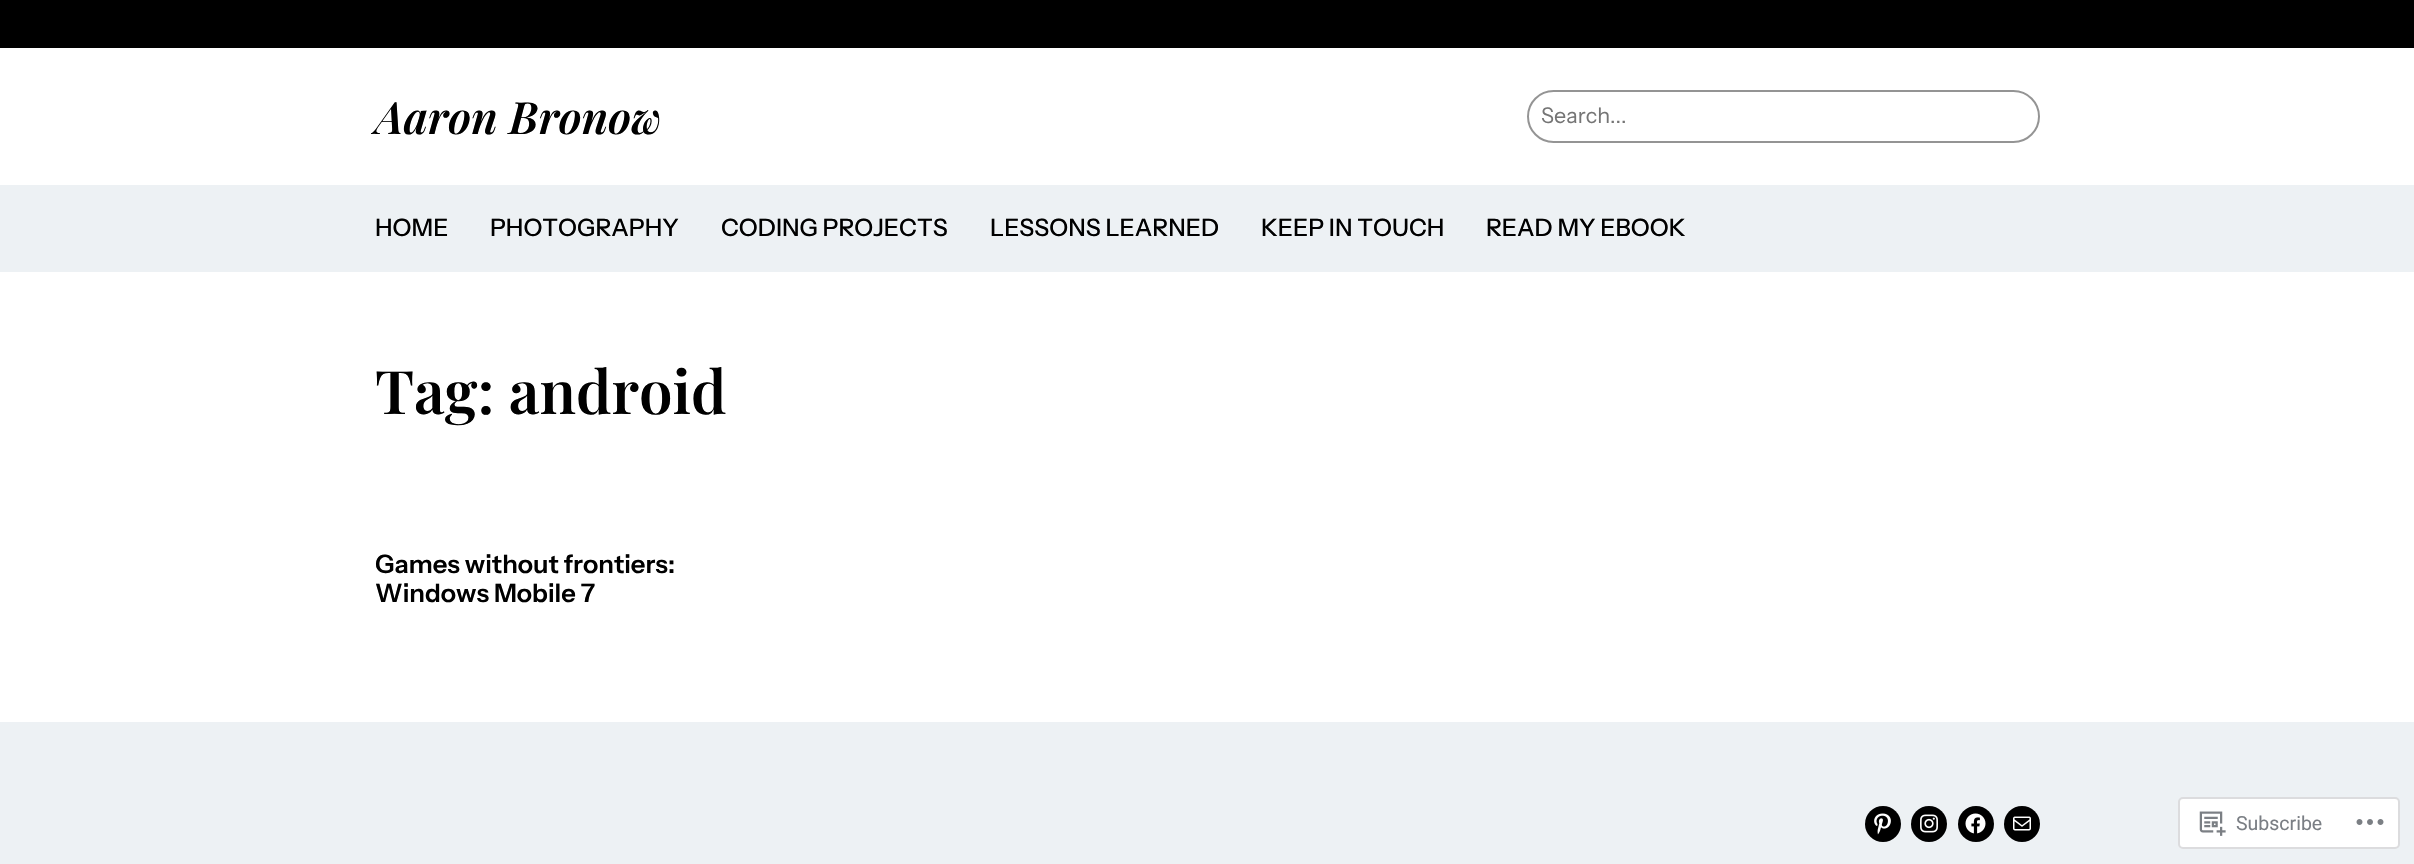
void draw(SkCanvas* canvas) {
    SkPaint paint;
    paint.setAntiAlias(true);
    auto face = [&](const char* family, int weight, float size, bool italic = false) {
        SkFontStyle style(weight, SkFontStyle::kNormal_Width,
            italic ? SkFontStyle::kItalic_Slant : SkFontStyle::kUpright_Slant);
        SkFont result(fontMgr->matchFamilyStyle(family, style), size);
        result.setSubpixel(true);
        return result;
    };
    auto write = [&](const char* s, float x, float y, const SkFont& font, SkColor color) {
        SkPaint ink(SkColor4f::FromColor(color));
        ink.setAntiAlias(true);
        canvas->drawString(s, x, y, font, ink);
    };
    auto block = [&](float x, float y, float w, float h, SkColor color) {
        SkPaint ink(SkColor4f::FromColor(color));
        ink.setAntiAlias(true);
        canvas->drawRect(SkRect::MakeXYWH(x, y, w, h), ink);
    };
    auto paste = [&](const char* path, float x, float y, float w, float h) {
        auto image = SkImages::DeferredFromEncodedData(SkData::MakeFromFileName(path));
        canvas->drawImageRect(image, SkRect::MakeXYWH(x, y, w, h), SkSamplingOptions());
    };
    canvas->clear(SK_ColorWHITE);
    block(0, 0, 2414, 48, SK_ColorBLACK);
    auto kFont1 = face("Playfair Display", 600, 44.5f, true);
    write("Aaron Bronow", 375, 134, kFont1, SK_ColorBLACK);
    paint.setStyle(SkPaint::kStroke_Style);
    paint.setStrokeWidth(2);
    paint.setColor(SkColorSetRGB(148, 148, 148));
    canvas->drawRoundRect(SkRect::MakeXYWH(1528, 91, 511, 51), 25.5f, 25.5f, paint);
    auto kFont2 = face("Instrument Sans", 400, 21.5f);
    write("Search...", 1541, 123, kFont2, SkColorSetRGB(117, 117, 117));
    block(0, 185, 2414, 87, SkColorSetRGB(237, 241, 244));
    auto kFont3 = face("Instrument Sans", 500, 24);
    write("HOME", 375, 236, kFont3, SK_ColorBLACK);
    write("PHOTOGRAPHY", 490, 236, kFont3, SK_ColorBLACK);
    write("CODING PROJECTS", 721, 236, kFont3, SK_ColorBLACK);
    write("LESSONS LEARNED", 990, 236, kFont3, SK_ColorBLACK);
    write("KEEP IN TOUCH", 1261, 236, kFont3, SK_ColorBLACK);
    write("READ MY EBOOK", 1486, 236, kFont3, SK_ColorBLACK);
    auto kFont4 = face("Playfair Display", 600, 60);
    write("Tag: android", 375, 414, kFont4, SK_ColorBLACK);
    auto kFont5 = face("Instrument Sans", 600, 25.5f);
    write("Games without frontiers:", 375, 573, kFont5, SK_ColorBLACK);
    write("Windows Mobile 7", 375, 602, kFont5, SK_ColorBLACK);
    block(0, 722, 2414, 142, SkColorSetRGB(237, 241, 244));
    paint.setStyle(SkPaint::kFill_Style);
    paint.setColor(SK_ColorBLACK);
    canvas->drawCircle(1883, 824, 18, paint);
    paste("pic1.png", 1874, 813, 17, 22);
    canvas->drawCircle(1929, 824, 18, paint);
    paste("pic2.png", 1920, 814, 18, 19);
    canvas->drawCircle(1976, 824, 18, paint);
    paste("pic3.png", 1965, 813, 21, 21);
    canvas->drawCircle(2022, 824, 18, paint);
    paste("pic4.png", 2013, 816, 18, 15);
    paint.setColor(SK_ColorWHITE);
    canvas->drawRoundRect(SkRect::MakeXYWH(2179, 798, 220, 50), 4, 4, paint);
    paint.setStyle(SkPaint::kStroke_Style);
    paint.setColor(SkColorSetRGB(220, 220, 222));
    canvas->drawRoundRect(SkRect::MakeXYWH(2179, 798, 220, 50), 4, 4, paint);
    paste("pic5.png", 2199, 811, 27, 25);
    auto kFont6 = face("Roboto", 400, 19.5f);
    write("Subscribe", 2236, 830, kFont6, SkColorSetRGB(122, 126, 132));
    paste("pic6.png", 2356, 819, 28, 6);
}
